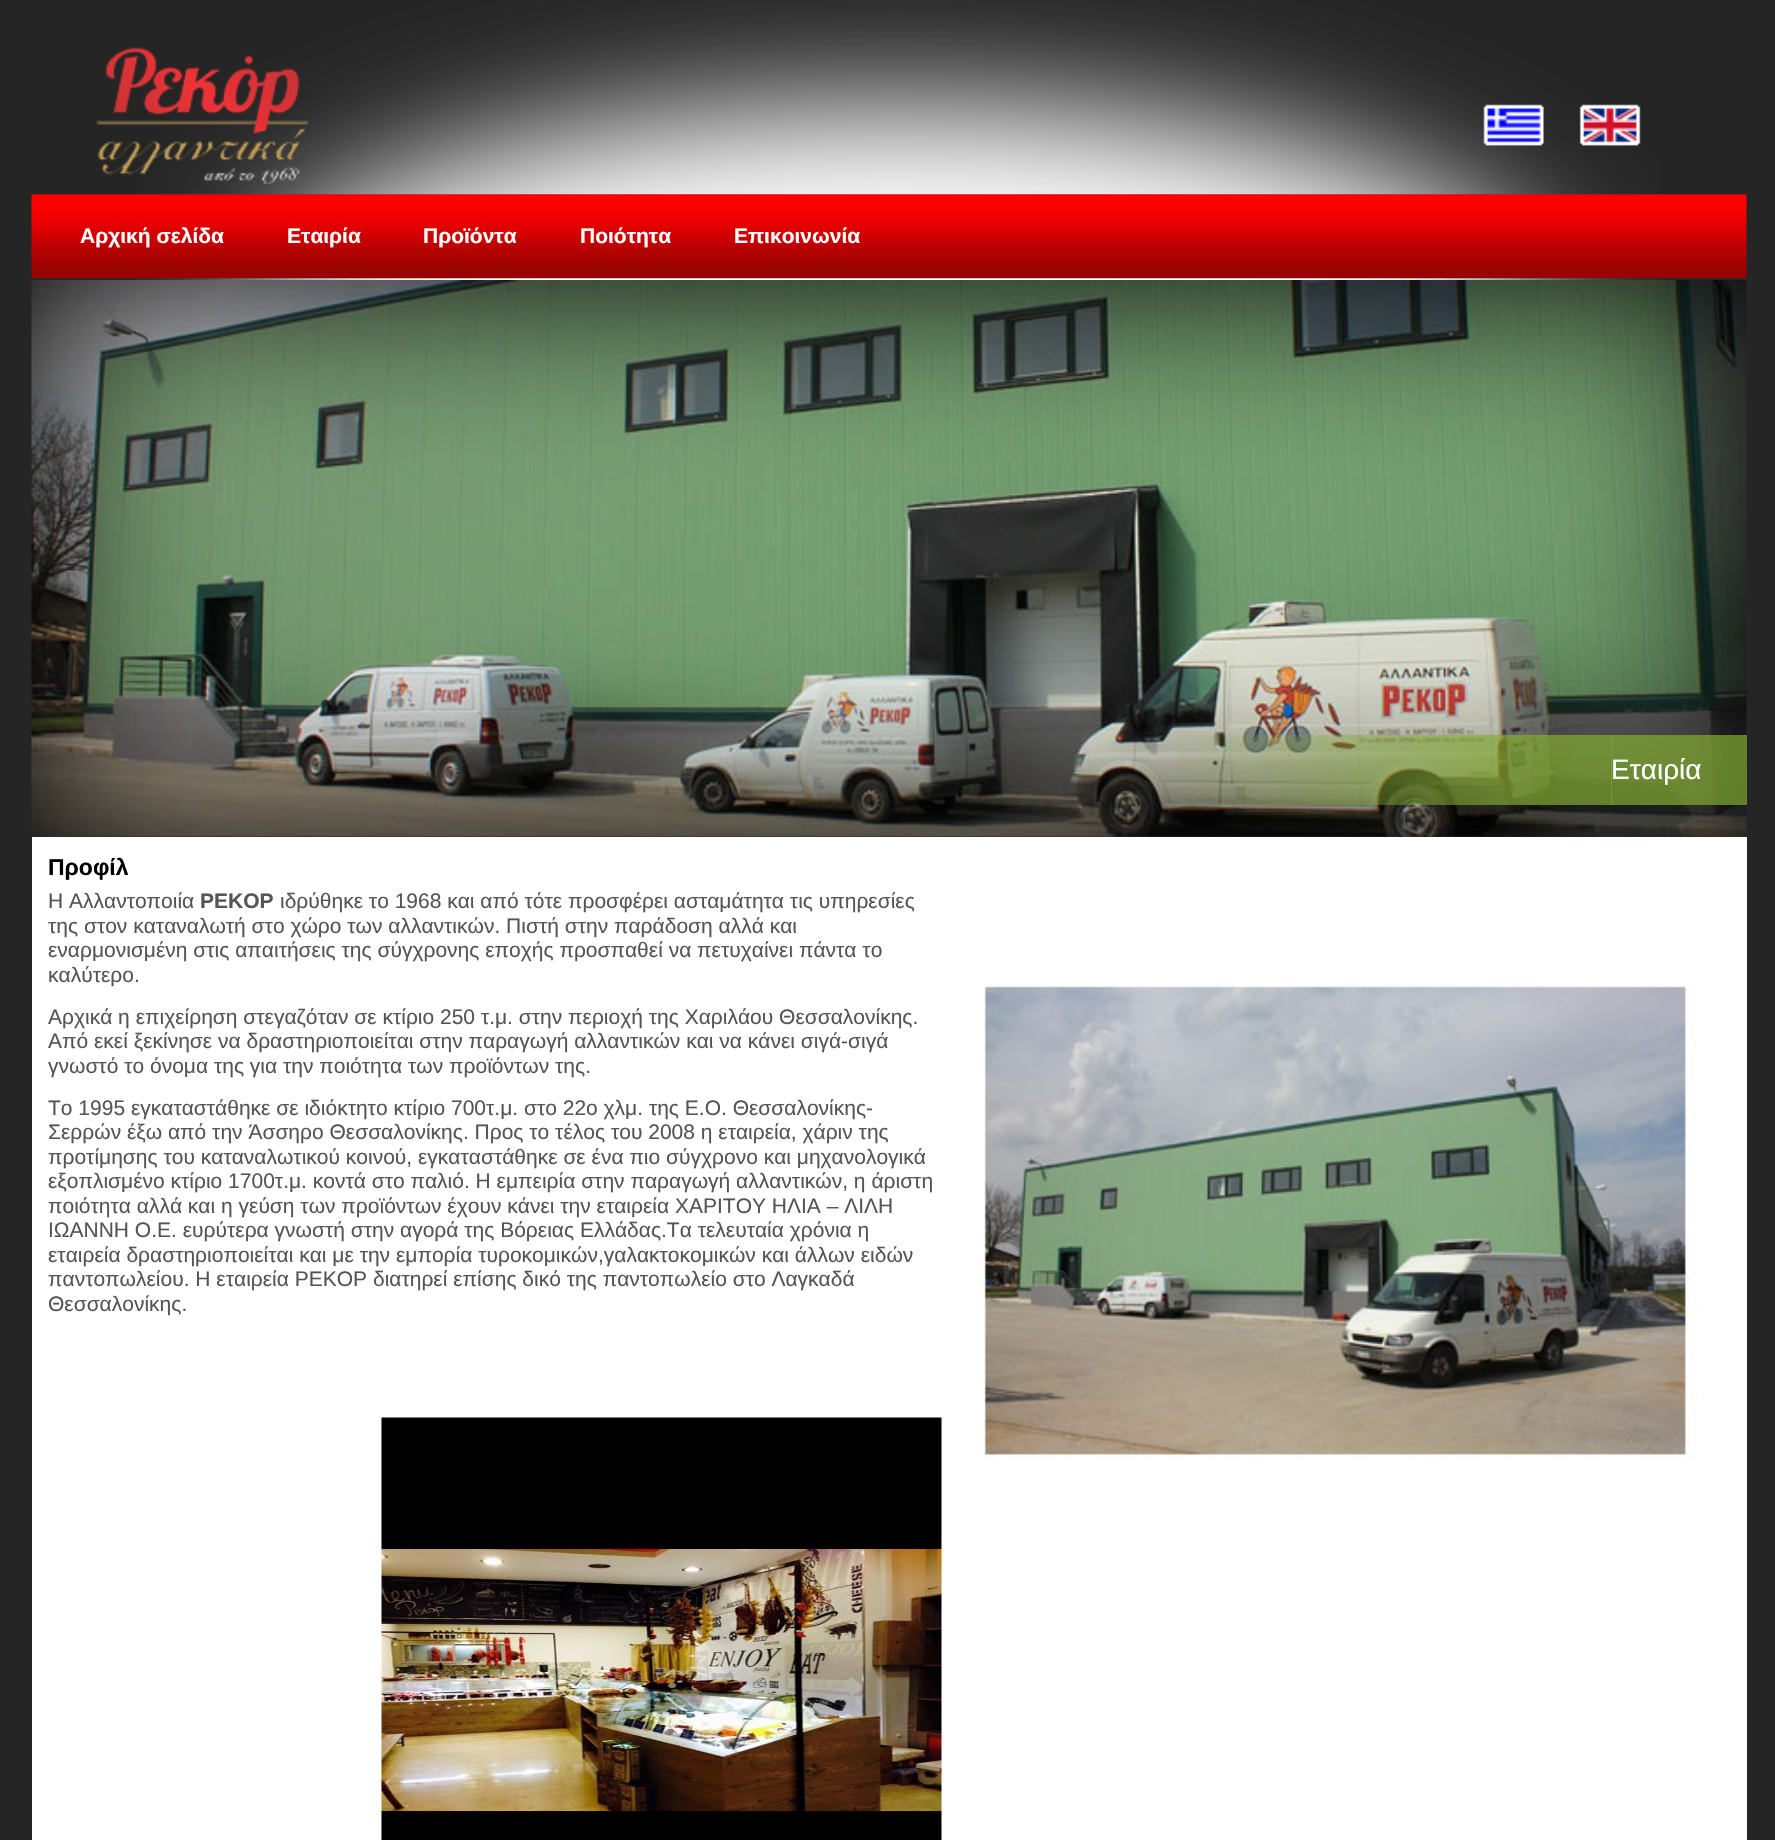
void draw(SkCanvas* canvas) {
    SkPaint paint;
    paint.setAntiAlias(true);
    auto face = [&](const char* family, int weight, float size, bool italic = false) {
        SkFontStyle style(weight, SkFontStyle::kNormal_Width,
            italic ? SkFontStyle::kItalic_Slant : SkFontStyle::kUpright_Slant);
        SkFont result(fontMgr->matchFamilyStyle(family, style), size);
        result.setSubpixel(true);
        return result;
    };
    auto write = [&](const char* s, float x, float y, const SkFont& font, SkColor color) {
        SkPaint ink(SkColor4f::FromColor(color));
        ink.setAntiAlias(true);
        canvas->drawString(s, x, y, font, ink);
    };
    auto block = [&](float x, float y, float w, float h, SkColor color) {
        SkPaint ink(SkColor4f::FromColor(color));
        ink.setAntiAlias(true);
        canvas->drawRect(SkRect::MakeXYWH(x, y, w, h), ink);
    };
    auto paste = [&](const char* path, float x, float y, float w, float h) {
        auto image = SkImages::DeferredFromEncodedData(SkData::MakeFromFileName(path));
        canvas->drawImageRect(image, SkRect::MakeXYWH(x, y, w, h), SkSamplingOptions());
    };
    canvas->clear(SkColorSetRGB(37, 37, 37));
    paste("pic1.png", 136, 0, 1524, 280);
    paste("pic2.png", 96, 47, 213, 137);
    paste("pic3.png", 1483, 104, 61, 42);
    paste("pic4.png", 1579, 104, 62, 42);
    paste("pic5.png", 31, 194, 1716, 85);
    auto kFont1 = face("Liberation Sans", 700, 21);
    write("Αρχική σελίδα", 80, 243, kFont1, SK_ColorWHITE);
    write("Εταιρία", 287, 243, kFont1, SK_ColorWHITE);
    write("Προϊόντα", 423, 243, kFont1, SK_ColorWHITE);
    write("Ποιότητα", 580, 243, kFont1, SK_ColorWHITE);
    write("Επικοινωνία", 734, 243, kFont1, SK_ColorWHITE);
    paste("pic6.png", 31, 280, 1716, 557);
    block(1611, 735, 136, 70, SkColorSetARGB(179, 130, 171, 48));
    paste("pic7.png", 1175, 735, 437, 70);
    auto kFont2 = face("Liberation Sans", 400, 28);
    write("Εταιρία", 1611, 779, kFont2, SK_ColorWHITE);
    block(32, 837, 1715, 1003, SK_ColorWHITE);
    auto kFont3 = face("Liberation Sans", 700, 23);
    write("Προφίλ", 48, 875, kFont3, SK_ColorBLACK);
    paste("pic8.png", 983, 983, 715, 477);
    auto kFont4 = face("Liberation Sans", 400, 21);
    write("Η Αλλαντοποιία", 48, 908, kFont4, SkColorSetRGB(85, 85, 85));
    write("ΡΕΚΟΡ", 200, 908, kFont1, SkColorSetRGB(85, 85, 85));
    write("ιδρύθηκε το 1968 και από τότε προσφέρει ασταμάτητα τις υπηρεσίες", 280, 908, kFont4, SkColorSetRGB(85, 85, 85));
    write("της στον καταναλωτή στο χώρο των αλλαντικών. Πιστή στην παράδοση αλλά και", 48, 933, kFont4, SkColorSetRGB(85, 85, 85));
    write("εναρμονισμένη στις απαιτήσεις της σύγχρονης εποχής προσπαθεί να πετυχαίνει πάντα το", 48, 957, kFont4, SkColorSetRGB(85, 85, 85));
    write("καλύτερο.", 48, 982, kFont4, SkColorSetRGB(85, 85, 85));
    write("Αρχικά η επιχείρηση στεγαζόταν σε κτίριο 250 τ.μ. στην περιοχή της Χαριλάου Θεσσαλονίκης.", 48, 1024, kFont4, SkColorSetRGB(85, 85, 85));
    write("Από εκεί ξεκίνησε να δραστηριοποιείται στην παραγωγή αλλαντικών και να κάνει σιγά-σιγά", 48, 1048, kFont4, SkColorSetRGB(85, 85, 85));
    write("γνωστό το όνομα της για την ποιότητα των προϊόντων της.", 48, 1073, kFont4, SkColorSetRGB(85, 85, 85));
    write("Το 1995 εγκαταστάθηκε σε ιδιόκτητο κτίριο 700τ.μ. στο 22ο χλμ. της Ε.Ο. Θεσσαλονίκης-", 48, 1115, kFont4, SkColorSetRGB(85, 85, 85));
    write("Σερρών έξω από την Άσσηρο Θεσσαλονίκης. Προς το τέλος του 2008 η εταιρεία, χάριν της", 48, 1139, kFont4, SkColorSetRGB(85, 85, 85));
    write("προτίμησης του καταναλωτικού κοινού, εγκαταστάθηκε σε ένα πιο σύγχρονο και μηχανολογικά", 48, 1164, kFont4, SkColorSetRGB(85, 85, 85));
    write("εξοπλισμένο κτίριο 1700τ.μ. κοντά στο παλιό. Η εμπειρία στην παραγωγή αλλαντικών, η άριστη", 48, 1188, kFont4, SkColorSetRGB(85, 85, 85));
    write("ποιότητα αλλά και η γεύση των προϊόντων έχουν κάνει την εταιρεία ΧΑΡΙΤΟΥ ΗΛΙΑ – ΛΙΛΗ", 48, 1213, kFont4, SkColorSetRGB(85, 85, 85));
    write("ΙΩΑΝΝΗ Ο.Ε. ευρύτερα γνωστή στην αγορά της Βόρειας Ελλάδας.Τα τελευταία χρόνια η", 48, 1237, kFont4, SkColorSetRGB(85, 85, 85));
    write("εταιρεία δραστηριοποιείται και με την εμπορία τυροκομικών,γαλακτοκομικών και άλλων ειδών", 48, 1262, kFont4, SkColorSetRGB(85, 85, 85));
    write("παντοπωλείου. Η εταιρεία ΡΕΚΟΡ διατηρεί επίσης δικό της παντοπωλείο στο Λαγκαδά", 48, 1286, kFont4, SkColorSetRGB(85, 85, 85));
    write("Θεσσαλονίκης.", 48, 1311, kFont4, SkColorSetRGB(85, 85, 85));
    paste("pic9.png", 381, 1417, 561, 423);
}
